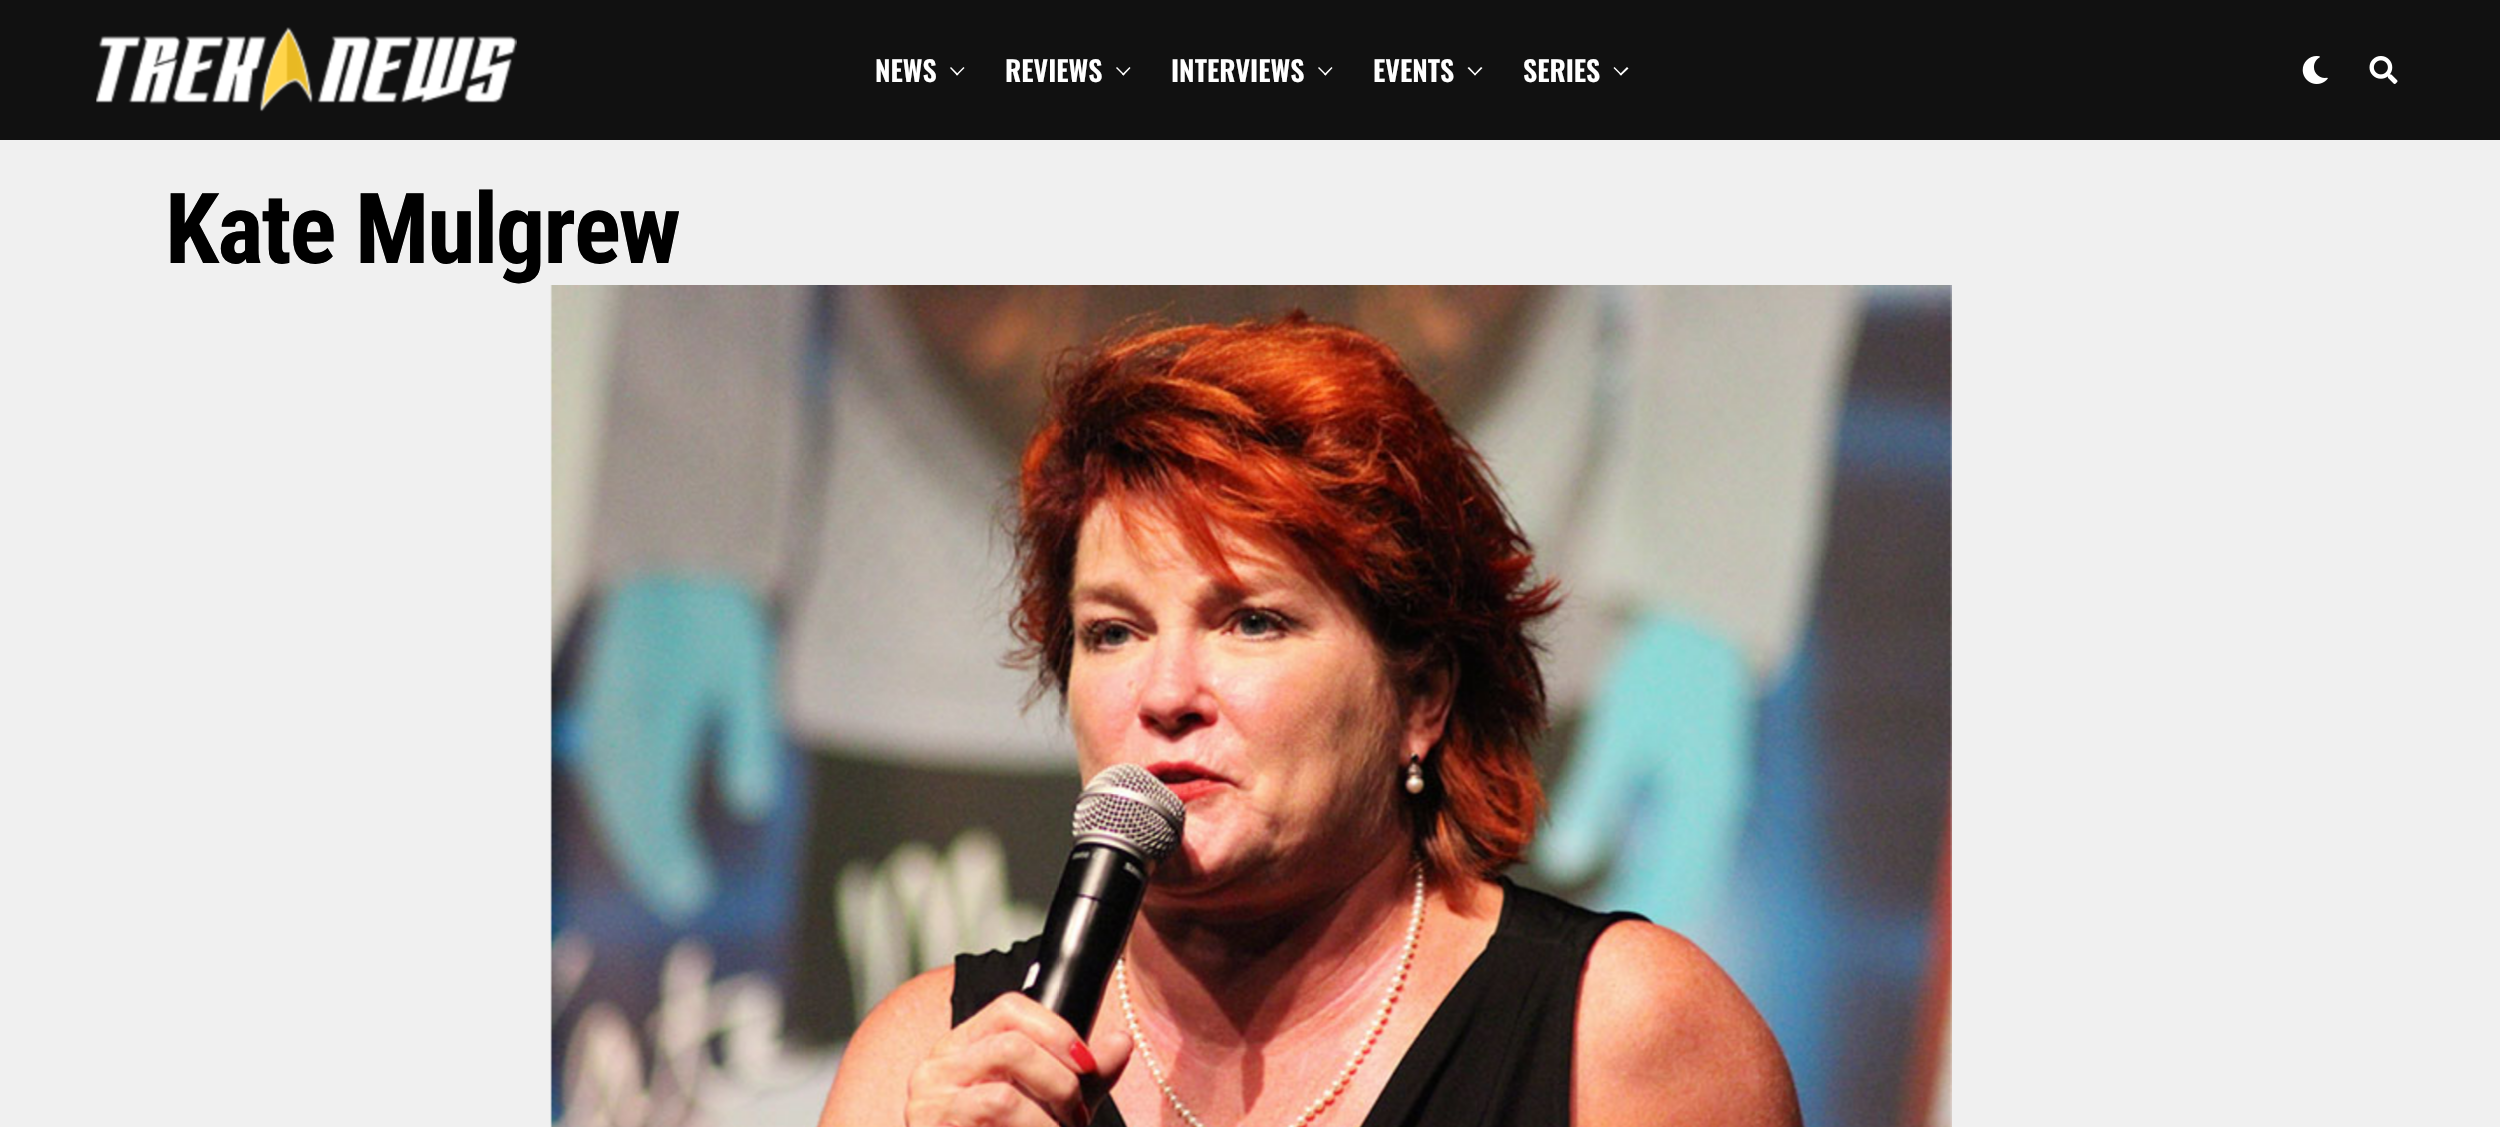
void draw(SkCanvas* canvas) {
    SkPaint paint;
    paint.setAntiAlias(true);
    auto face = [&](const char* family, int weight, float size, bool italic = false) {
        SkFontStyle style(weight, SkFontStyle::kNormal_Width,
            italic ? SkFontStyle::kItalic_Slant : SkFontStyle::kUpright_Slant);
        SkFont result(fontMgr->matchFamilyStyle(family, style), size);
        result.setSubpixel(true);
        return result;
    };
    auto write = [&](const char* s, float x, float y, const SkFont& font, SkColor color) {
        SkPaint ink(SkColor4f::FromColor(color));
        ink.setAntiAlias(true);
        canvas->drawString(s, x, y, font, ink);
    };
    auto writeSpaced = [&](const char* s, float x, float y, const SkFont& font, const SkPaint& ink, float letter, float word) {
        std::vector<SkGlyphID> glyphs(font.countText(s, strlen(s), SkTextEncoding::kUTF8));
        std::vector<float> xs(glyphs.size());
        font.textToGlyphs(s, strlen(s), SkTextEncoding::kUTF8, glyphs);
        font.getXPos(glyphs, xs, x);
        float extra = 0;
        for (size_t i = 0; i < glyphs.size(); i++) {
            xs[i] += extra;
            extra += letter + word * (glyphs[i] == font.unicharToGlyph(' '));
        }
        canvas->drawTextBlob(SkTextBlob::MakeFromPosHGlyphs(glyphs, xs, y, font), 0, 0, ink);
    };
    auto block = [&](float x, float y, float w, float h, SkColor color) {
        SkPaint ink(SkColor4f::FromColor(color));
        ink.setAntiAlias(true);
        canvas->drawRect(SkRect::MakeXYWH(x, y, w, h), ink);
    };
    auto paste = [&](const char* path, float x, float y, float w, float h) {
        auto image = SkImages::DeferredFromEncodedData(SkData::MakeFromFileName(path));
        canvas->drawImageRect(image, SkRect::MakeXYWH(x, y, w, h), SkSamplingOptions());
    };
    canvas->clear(SkColorSetRGB(240, 240, 240));
    block(0, 0, 2500, 140, SkColorSetRGB(17, 17, 17));
    paste("pic1.png", 96, 27, 421, 85);
    auto kFont1 = face("Oswald", 600, 28);
    write("NEWS", 875, 82, kFont1, SK_ColorWHITE);
    paint.setColor(SK_ColorWHITE);
    canvas->drawPath(SkPathBuilder().moveTo(963.5f, 67).lineTo(964.5f, 68).lineTo(957, 75.5f).lineTo(956, 74.5f).close().detach(), paint);
    canvas->drawPath(SkPathBuilder().moveTo(951, 67).lineTo(958.5f, 74.5f).lineTo(957, 75.5f).lineTo(950, 68).close().detach(), paint);
    write("REVIEWS", 1005, 82, kFont1, SK_ColorWHITE);
    canvas->drawPath(SkPathBuilder().moveTo(1129.5f, 67).lineTo(1130.5f, 68).lineTo(1123.5f, 75.5f).lineTo(1122, 74.5f).close().detach(), paint);
    canvas->drawPath(SkPathBuilder().moveTo(1117, 67).lineTo(1124.5f, 74.5f).lineTo(1123.5f, 75.5f).lineTo(1116, 68).close().detach(), paint);
    write("INTERVIEWS", 1171, 82, kFont1, SK_ColorWHITE);
    canvas->drawPath(SkPathBuilder().moveTo(1331.5f, 67).lineTo(1332.5f, 68).lineTo(1325.5f, 75.5f).lineTo(1324, 74.5f).close().detach(), paint);
    canvas->drawPath(SkPathBuilder().moveTo(1319, 67).lineTo(1326.5f, 74.5f).lineTo(1325.5f, 75.5f).lineTo(1318, 68).close().detach(), paint);
    write("EVENTS", 1373, 82, kFont1, SK_ColorWHITE);
    canvas->drawPath(SkPathBuilder().moveTo(1481, 67).lineTo(1482.5f, 68).lineTo(1475, 75.5f).lineTo(1474, 74.5f).close().detach(), paint);
    canvas->drawPath(SkPathBuilder().moveTo(1469, 67).lineTo(1476, 74.5f).lineTo(1475, 75.5f).lineTo(1467.5f, 68).close().detach(), paint);
    write("SERIES", 1523, 82, kFont1, SK_ColorWHITE);
    canvas->drawPath(SkPathBuilder().moveTo(1627, 67).lineTo(1628.5f, 68.5f).lineTo(1621, 75.5f).lineTo(1619.5f, 74.5f).close().detach(), paint);
    canvas->drawPath(SkPathBuilder().moveTo(1614.5f, 67).lineTo(1622, 74.5f).lineTo(1621, 75.5f).lineTo(1613.5f, 68).close().detach(), paint);
    paste("pic2.png", 2302, 56, 26, 28);
    paste("pic3.png", 2369, 56, 29, 28);
    auto kFont2 = face("Roboto Condensed", 700, 98);
    paint.setColor(SK_ColorBLACK);
    writeSpaced("Kate Mulgrew", 165, 263, kFont2, paint, -2, 0);
    paste("pic4.png", 550, 285, 1402, 842);
}
